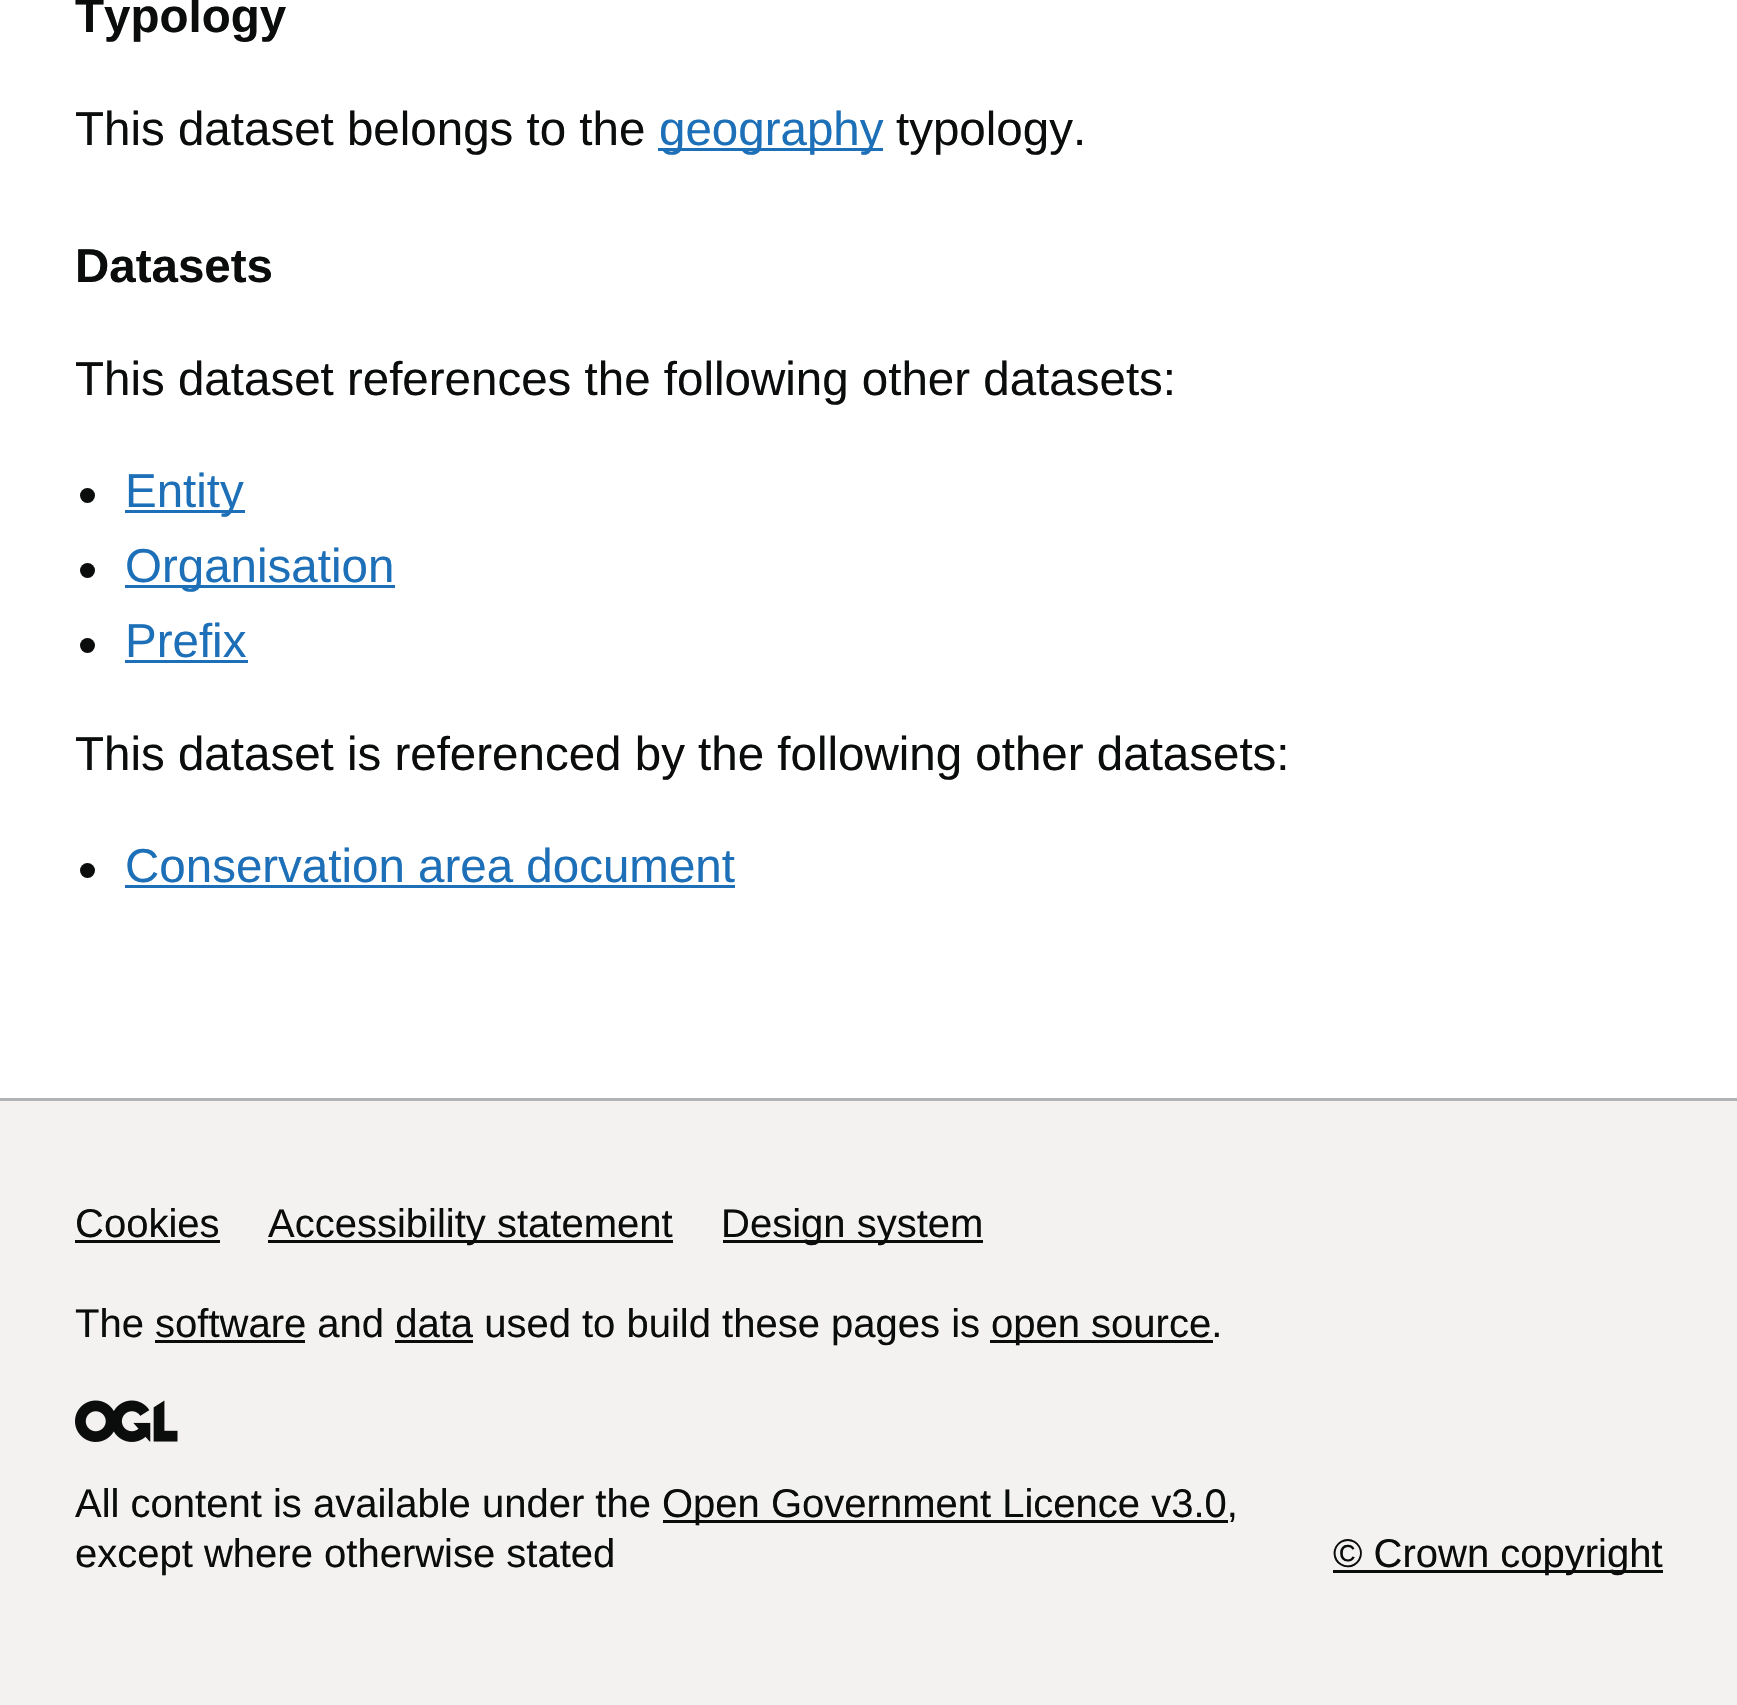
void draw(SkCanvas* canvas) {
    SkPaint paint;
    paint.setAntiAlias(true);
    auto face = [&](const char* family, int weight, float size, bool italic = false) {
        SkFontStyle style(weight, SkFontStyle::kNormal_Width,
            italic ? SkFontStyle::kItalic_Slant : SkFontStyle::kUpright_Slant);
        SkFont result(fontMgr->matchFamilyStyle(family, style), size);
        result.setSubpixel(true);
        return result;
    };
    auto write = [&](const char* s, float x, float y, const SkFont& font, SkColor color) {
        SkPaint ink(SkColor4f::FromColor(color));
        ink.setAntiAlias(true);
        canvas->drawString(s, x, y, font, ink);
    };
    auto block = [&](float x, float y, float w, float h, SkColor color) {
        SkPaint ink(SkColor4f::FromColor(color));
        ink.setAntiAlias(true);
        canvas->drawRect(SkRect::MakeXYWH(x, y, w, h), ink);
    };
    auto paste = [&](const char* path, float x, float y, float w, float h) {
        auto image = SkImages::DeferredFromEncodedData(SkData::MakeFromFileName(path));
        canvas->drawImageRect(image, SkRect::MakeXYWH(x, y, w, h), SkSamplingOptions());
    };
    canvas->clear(SK_ColorWHITE);
    auto kFont1 = face("Liberation Sans", 700, 47.5f);
    write("Typology", 75, 32, kFont1, SkColorSetRGB(11, 12, 12));
    auto kFont2 = face("Liberation Sans", 400, 47.5f);
    write("This dataset belongs to the", 75, 145, kFont2, SkColorSetRGB(11, 12, 12));
    block(658, 148, 225, 3, SkColorSetRGB(29, 112, 184));
    write("geography", 659, 145, kFont2, SkColorSetRGB(29, 112, 184));
    write("typology.", 896, 145, kFont2, SkColorSetRGB(11, 12, 12));
    write("Datasets", 75, 282, kFont1, SkColorSetRGB(11, 12, 12));
    write("This dataset references the following other datasets:", 75, 395, kFont2, SkColorSetRGB(11, 12, 12));
    paint.setColor(SkColorSetRGB(11, 12, 12));
    canvas->drawCircle(87.5f, 495.5f, 7.5f, paint);
    block(125, 510, 120, 3, SkColorSetRGB(29, 112, 184));
    write("Entity", 125, 507, kFont2, SkColorSetRGB(29, 112, 184));
    canvas->drawCircle(87.5f, 570.5f, 7.5f, paint);
    block(125, 585, 270, 3, SkColorSetRGB(29, 112, 184));
    write("Organisation", 125, 582, kFont2, SkColorSetRGB(29, 112, 184));
    canvas->drawCircle(87.5f, 645.5f, 7.5f, paint);
    write("Prefix", 125, 657, kFont2, SkColorSetRGB(29, 112, 184));
    block(125, 660, 123, 3, SkColorSetRGB(29, 112, 184));
    write("This dataset is referenced by the following other datasets:", 75, 770, kFont2, SkColorSetRGB(11, 12, 12));
    canvas->drawCircle(87.5f, 870.5f, 7.5f, paint);
    write("Conservation area document", 125, 882, kFont2, SkColorSetRGB(29, 112, 184));
    block(125, 885, 610, 3, SkColorSetRGB(29, 112, 184));
    block(0, 1101, 1737, 604, SkColorSetRGB(243, 242, 241));
    block(0, 1098, 1737, 3, SkColorSetRGB(177, 180, 182));
    auto kFont3 = face("Liberation Sans", 400, 40);
    write("Cookies", 75, 1237, kFont3, SkColorSetRGB(11, 12, 12));
    block(75, 1240, 145, 3, SkColorSetRGB(11, 12, 12));
    block(268, 1240, 405, 3, SkColorSetRGB(11, 12, 12));
    write("Accessibility statement", 268, 1237, kFont3, SkColorSetRGB(11, 12, 12));
    block(723, 1240, 260, 3, SkColorSetRGB(11, 12, 12));
    write("Design system", 721, 1237, kFont3, SkColorSetRGB(11, 12, 12));
    write("The software and data used to build these pages is", 75, 1337, kFont3, SkColorSetRGB(11, 12, 12));
    block(990, 1340, 223, 3, SkColorSetRGB(11, 12, 12));
    write("open source.", 991, 1337, kFont3, SkColorSetRGB(11, 12, 12));
    block(155, 1340, 150, 3, SkColorSetRGB(11, 12, 12));
    block(395, 1340, 78, 3, SkColorSetRGB(11, 12, 12));
    paste("pic1.png", 75, 1400, 103, 42);
    write("All content is available under the", 75, 1517, kFont3, SkColorSetRGB(11, 12, 12));
    block(663, 1520, 565, 3, SkColorSetRGB(11, 12, 12));
    write("Open Government Licence v3.0,", 662, 1517, kFont3, SkColorSetRGB(11, 12, 12));
    write("except where otherwise stated", 75, 1567, kFont3, SkColorSetRGB(11, 12, 12));
    block(1333, 1570, 330, 3, SkColorSetRGB(11, 12, 12));
    write("© Crown copyright", 1333, 1567, kFont3, SkColorSetRGB(11, 12, 12));
}
